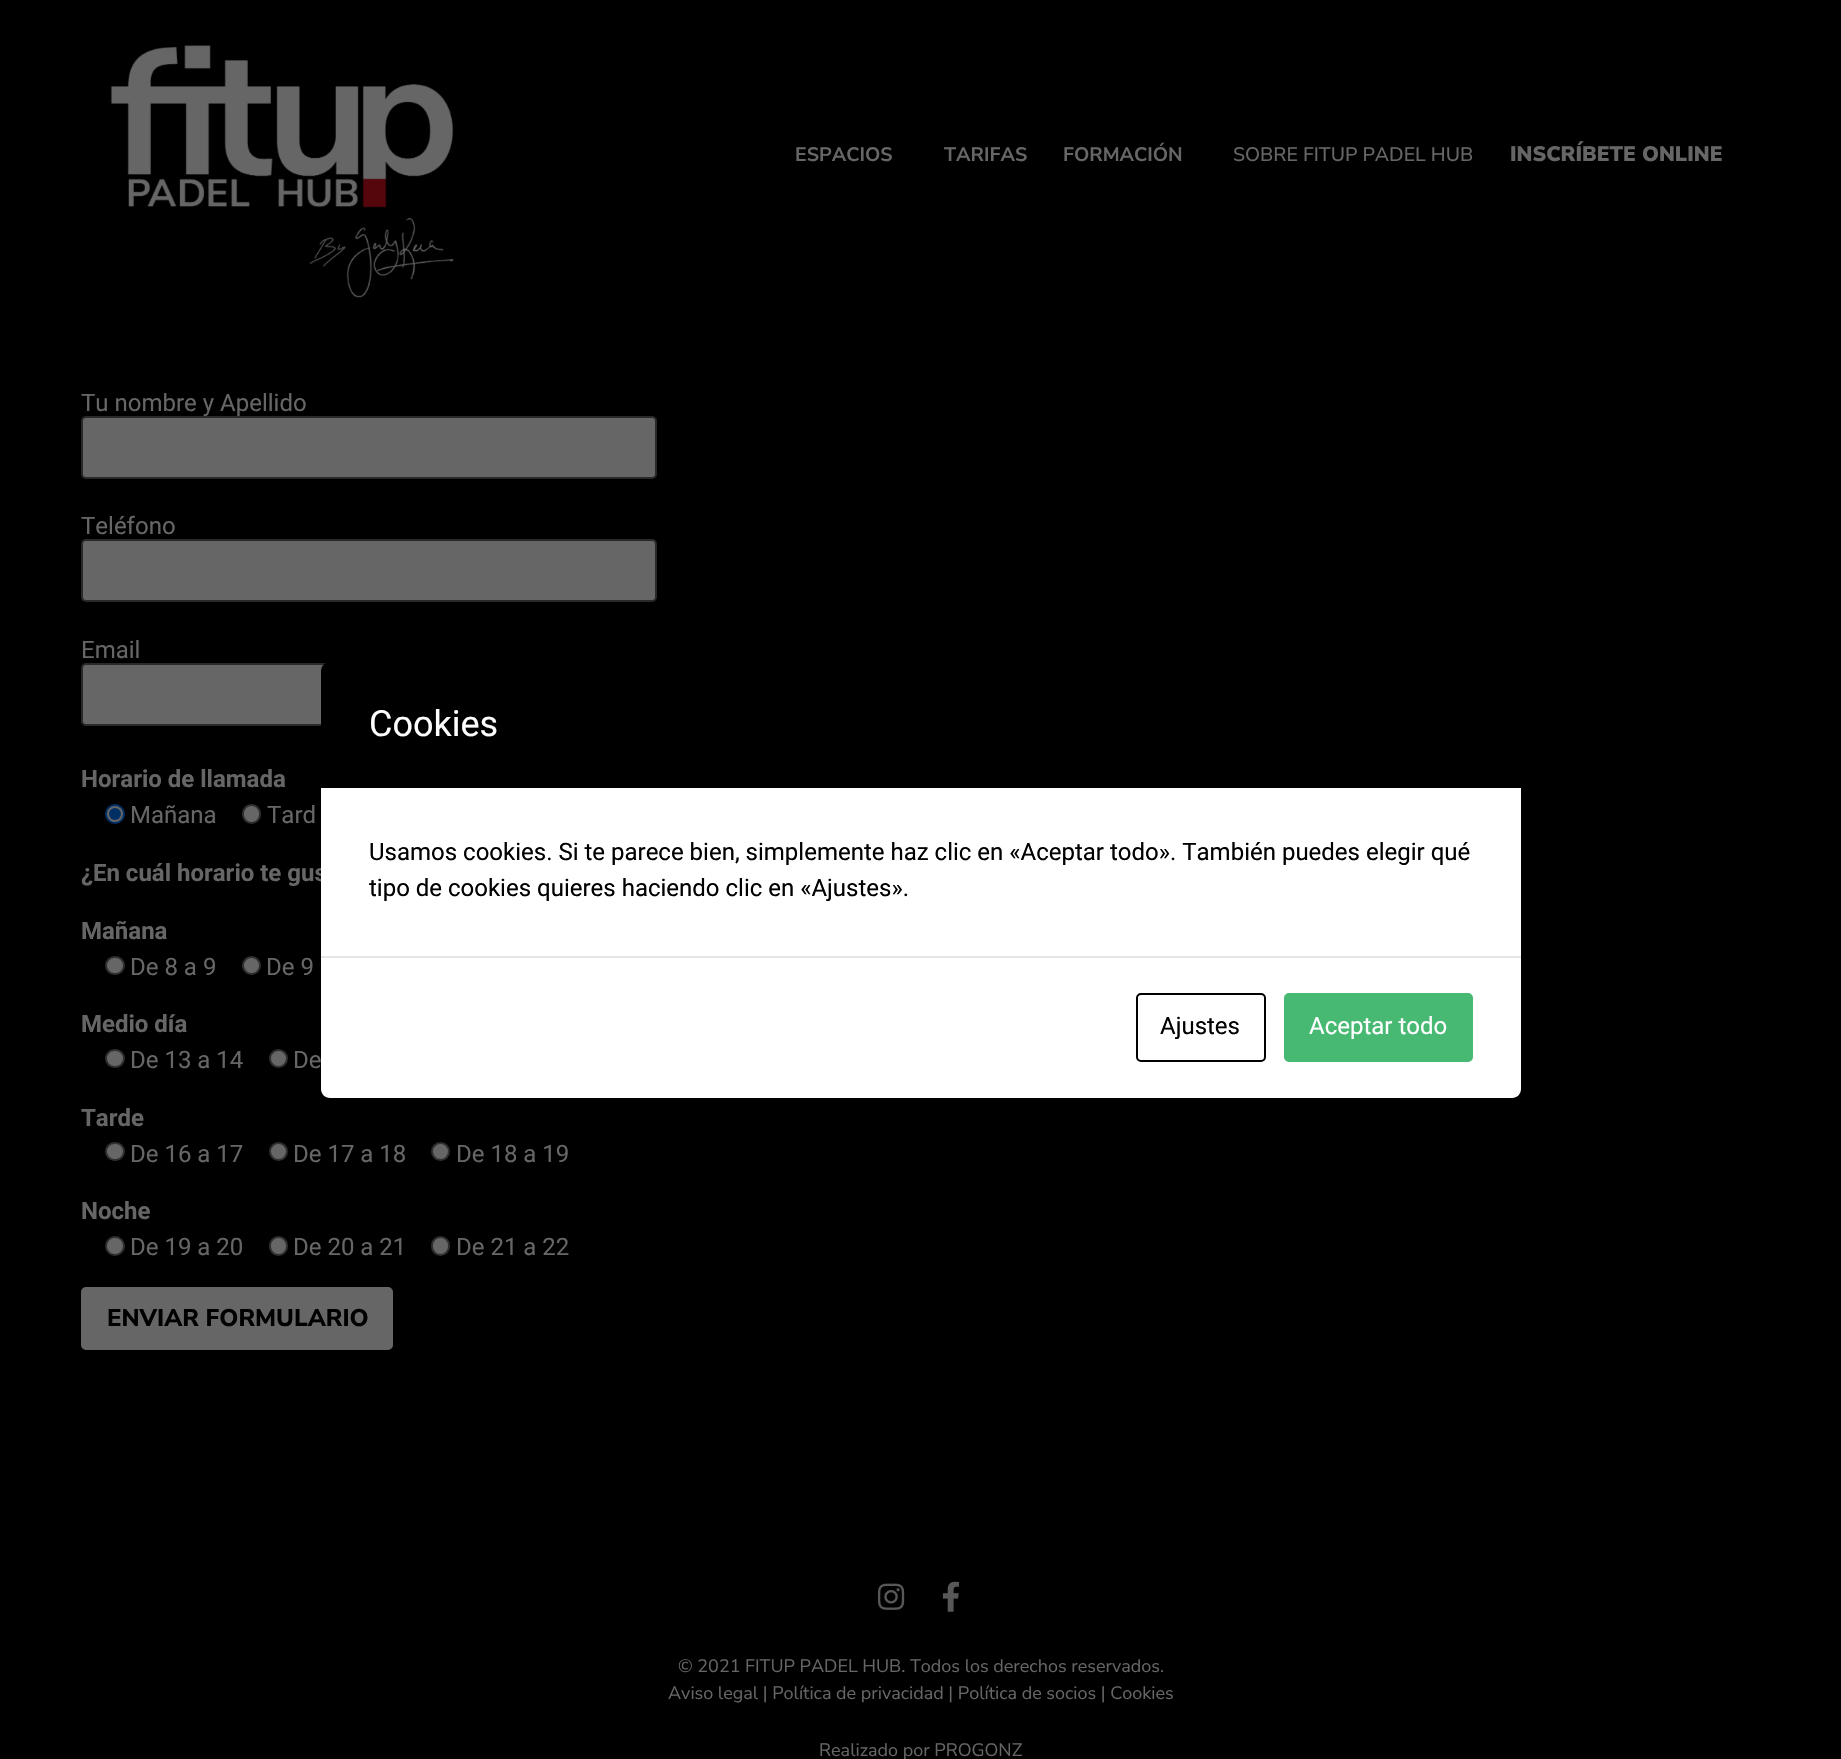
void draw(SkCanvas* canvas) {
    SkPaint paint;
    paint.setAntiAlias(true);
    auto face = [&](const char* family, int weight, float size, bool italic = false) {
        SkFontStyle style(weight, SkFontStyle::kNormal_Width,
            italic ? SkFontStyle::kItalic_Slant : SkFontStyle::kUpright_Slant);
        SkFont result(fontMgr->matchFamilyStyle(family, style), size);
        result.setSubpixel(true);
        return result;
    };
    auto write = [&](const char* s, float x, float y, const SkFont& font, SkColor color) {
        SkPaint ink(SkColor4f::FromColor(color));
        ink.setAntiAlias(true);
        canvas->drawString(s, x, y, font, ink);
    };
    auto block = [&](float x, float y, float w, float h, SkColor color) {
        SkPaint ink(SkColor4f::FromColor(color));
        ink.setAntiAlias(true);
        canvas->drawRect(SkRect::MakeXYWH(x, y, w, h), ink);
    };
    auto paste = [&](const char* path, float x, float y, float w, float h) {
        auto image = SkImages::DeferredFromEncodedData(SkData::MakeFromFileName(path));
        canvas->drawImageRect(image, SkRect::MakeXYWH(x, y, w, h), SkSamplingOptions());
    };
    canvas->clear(SK_ColorBLACK);
    paste("pic1.png", 110, 45, 344, 253);
    auto kFont1 = face("Nunito Sans", 700, 19.5f);
    write("ESPACIOS", 795, 161, kFont1, SkColorSetRGB(102, 102, 102));
    write("TARIFAS", 944, 161, kFont1, SkColorSetRGB(102, 102, 102));
    write("FORMACIÓN", 1063, 161, kFont1, SkColorSetRGB(102, 102, 102));
    auto kFont2 = face("Nunito Sans", 500, 19.5f);
    write("SOBRE FITUP PADEL HUB", 1233, 161, kFont2, SkColorSetRGB(102, 102, 102));
    auto kFont3 = face("Nunito Sans", 900, 21);
    write("INSCRÍBETE ONLINE", 1510, 161, kFont3, SkColorSetRGB(102, 102, 102));
    auto kFont4 = face("Roboto", 400, 24);
    write("Tu nombre y Apellido", 81, 411, kFont4, SkColorSetRGB(102, 102, 102));
    paint.setColor(SkColorSetRGB(102, 102, 102));
    canvas->drawRoundRect(SkRect::MakeXYWH(82, 417, 574, 61), 4, 4, paint);
    paint.setStyle(SkPaint::kStroke_Style);
    paint.setStrokeWidth(2);
    paint.setColor(SkColorSetRGB(41, 41, 41));
    canvas->drawRoundRect(SkRect::MakeXYWH(82, 417, 574, 61), 4, 4, paint);
    write("Teléfono", 81, 534, kFont4, SkColorSetRGB(102, 102, 102));
    paint.setStyle(SkPaint::kFill_Style);
    paint.setColor(SkColorSetRGB(102, 102, 102));
    canvas->drawRoundRect(SkRect::MakeXYWH(82, 540, 574, 61), 4, 4, paint);
    paint.setStyle(SkPaint::kStroke_Style);
    paint.setColor(SkColorSetRGB(41, 41, 41));
    canvas->drawRoundRect(SkRect::MakeXYWH(82, 540, 574, 61), 4, 4, paint);
    write("Email", 81, 658, kFont4, SkColorSetRGB(102, 102, 102));
    paint.setStyle(SkPaint::kFill_Style);
    paint.setColor(SkColorSetRGB(102, 102, 102));
    canvas->drawRoundRect(SkRect::MakeXYWH(82, 664, 574, 61), 4, 4, paint);
    paint.setStyle(SkPaint::kStroke_Style);
    paint.setColor(SkColorSetRGB(41, 41, 41));
    canvas->drawRoundRect(SkRect::MakeXYWH(82, 664, 574, 61), 4, 4, paint);
    auto kFont5 = face("Roboto", 700, 24);
    write("Horario de llamada", 81, 787, kFont5, SkColorSetRGB(102, 102, 102));
    paint.setStyle(SkPaint::kFill_Style);
    paint.setColor(SkColorSetRGB(102, 102, 102));
    canvas->drawCircle(115, 814, 9, paint);
    paint.setStyle(SkPaint::kStroke_Style);
    paint.setColor(SkColorSetRGB(0, 47, 102));
    canvas->drawCircle(115, 814, 9, paint);
    paint.setStyle(SkPaint::kFill_Style);
    canvas->drawCircle(115, 814, 6, paint);
    write("Mañana", 130, 823, kFont4, SkColorSetRGB(102, 102, 102));
    paint.setColor(SkColorSetRGB(102, 102, 102));
    canvas->drawRoundRect(SkRect::MakeXYWH(243, 805, 17, 18), 8.5f, 8.5f, paint);
    paint.setStyle(SkPaint::kStroke_Style);
    paint.setColor(SkColorSetRGB(47, 47, 47));
    canvas->drawRoundRect(SkRect::MakeXYWH(243, 805, 17, 18), 8.5f, 8.5f, paint);
    write("Tard", 267, 823, kFont4, SkColorSetRGB(102, 102, 102));
    write("¿En cuál horario te gus", 81, 881, kFont5, SkColorSetRGB(102, 102, 102));
    write("Mañana", 81, 939, kFont5, SkColorSetRGB(102, 102, 102));
    paint.setStyle(SkPaint::kFill_Style);
    paint.setColor(SkColorSetRGB(102, 102, 102));
    canvas->drawRoundRect(SkRect::MakeXYWH(106, 957, 18, 17), 8.5f, 8.5f, paint);
    paint.setStyle(SkPaint::kStroke_Style);
    paint.setColor(SkColorSetRGB(47, 47, 47));
    canvas->drawRoundRect(SkRect::MakeXYWH(106, 957, 18, 17), 8.5f, 8.5f, paint);
    write("De 8 a 9", 130, 975, kFont4, SkColorSetRGB(102, 102, 102));
    paint.setStyle(SkPaint::kFill_Style);
    paint.setColor(SkColorSetRGB(102, 102, 102));
    canvas->drawCircle(251.5f, 965.5f, 8.5f, paint);
    paint.setStyle(SkPaint::kStroke_Style);
    paint.setColor(SkColorSetRGB(47, 47, 47));
    canvas->drawCircle(251.5f, 965.5f, 8.5f, paint);
    write("De 9", 266, 975, kFont4, SkColorSetRGB(102, 102, 102));
    write("Medio día", 81, 1032, kFont5, SkColorSetRGB(102, 102, 102));
    paint.setStyle(SkPaint::kFill_Style);
    paint.setColor(SkColorSetRGB(102, 102, 102));
    canvas->drawRoundRect(SkRect::MakeXYWH(106, 1050, 18, 17), 8.5f, 8.5f, paint);
    paint.setStyle(SkPaint::kStroke_Style);
    paint.setColor(SkColorSetRGB(47, 47, 47));
    canvas->drawRoundRect(SkRect::MakeXYWH(106, 1050, 18, 17), 8.5f, 8.5f, paint);
    write("De 13 a 14", 130, 1068, kFont4, SkColorSetRGB(102, 102, 102));
    paint.setStyle(SkPaint::kFill_Style);
    paint.setColor(SkColorSetRGB(102, 102, 102));
    canvas->drawCircle(278.5f, 1058.5f, 8.5f, paint);
    paint.setStyle(SkPaint::kStroke_Style);
    paint.setColor(SkColorSetRGB(47, 47, 47));
    canvas->drawCircle(278.5f, 1058.5f, 8.5f, paint);
    write("De", 293, 1068, kFont4, SkColorSetRGB(102, 102, 102));
    write("Tarde", 81, 1126, kFont5, SkColorSetRGB(102, 102, 102));
    paint.setStyle(SkPaint::kFill_Style);
    paint.setColor(SkColorSetRGB(102, 102, 102));
    canvas->drawRoundRect(SkRect::MakeXYWH(106, 1143, 18, 17), 8.5f, 8.5f, paint);
    paint.setStyle(SkPaint::kStroke_Style);
    paint.setColor(SkColorSetRGB(47, 47, 47));
    canvas->drawRoundRect(SkRect::MakeXYWH(106, 1143, 18, 17), 8.5f, 8.5f, paint);
    write("De 16 a 17", 130, 1162, kFont4, SkColorSetRGB(102, 102, 102));
    paint.setStyle(SkPaint::kFill_Style);
    paint.setColor(SkColorSetRGB(102, 102, 102));
    canvas->drawCircle(278.5f, 1151.5f, 8.5f, paint);
    paint.setStyle(SkPaint::kStroke_Style);
    paint.setColor(SkColorSetRGB(47, 47, 47));
    canvas->drawCircle(278.5f, 1151.5f, 8.5f, paint);
    write("De 17 a 18", 293, 1162, kFont4, SkColorSetRGB(102, 102, 102));
    paint.setStyle(SkPaint::kFill_Style);
    paint.setColor(SkColorSetRGB(102, 102, 102));
    canvas->drawCircle(440.5f, 1151.5f, 8.5f, paint);
    paint.setStyle(SkPaint::kStroke_Style);
    paint.setColor(SkColorSetRGB(47, 47, 47));
    canvas->drawCircle(440.5f, 1151.5f, 8.5f, paint);
    write("De 18 a 19", 456, 1162, kFont4, SkColorSetRGB(102, 102, 102));
    write("Noche", 81, 1219, kFont5, SkColorSetRGB(102, 102, 102));
    paint.setStyle(SkPaint::kFill_Style);
    paint.setColor(SkColorSetRGB(102, 102, 102));
    canvas->drawCircle(115, 1246, 9, paint);
    paint.setStyle(SkPaint::kStroke_Style);
    paint.setColor(SkColorSetRGB(47, 47, 47));
    canvas->drawCircle(115, 1246, 9, paint);
    write("De 19 a 20", 130, 1255, kFont4, SkColorSetRGB(102, 102, 102));
    paint.setStyle(SkPaint::kFill_Style);
    paint.setColor(SkColorSetRGB(102, 102, 102));
    canvas->drawRoundRect(SkRect::MakeXYWH(270, 1237, 17, 18), 8.5f, 8.5f, paint);
    paint.setStyle(SkPaint::kStroke_Style);
    paint.setColor(SkColorSetRGB(47, 47, 47));
    canvas->drawRoundRect(SkRect::MakeXYWH(270, 1237, 17, 18), 8.5f, 8.5f, paint);
    write("De 20 a 21", 293, 1255, kFont4, SkColorSetRGB(102, 102, 102));
    paint.setStyle(SkPaint::kFill_Style);
    paint.setColor(SkColorSetRGB(102, 102, 102));
    canvas->drawRoundRect(SkRect::MakeXYWH(432, 1237, 17, 18), 8.5f, 8.5f, paint);
    paint.setStyle(SkPaint::kStroke_Style);
    paint.setColor(SkColorSetRGB(47, 47, 47));
    canvas->drawRoundRect(SkRect::MakeXYWH(432, 1237, 17, 18), 8.5f, 8.5f, paint);
    write("De 21 a 22", 456, 1255, kFont4, SkColorSetRGB(102, 102, 102));
    paint.setStyle(SkPaint::kFill_Style);
    paint.setColor(SkColorSetRGB(102, 102, 102));
    canvas->drawRoundRect(SkRect::MakeXYWH(82, 1288, 310, 61), 4, 4, paint);
    paint.setStyle(SkPaint::kStroke_Style);
    canvas->drawRoundRect(SkRect::MakeXYWH(82, 1288, 310, 61), 4, 4, paint);
    auto kFont6 = face("Nunito Sans", 800, 24);
    write("ENVIAR FORMULARIO", 107, 1326, kFont6, SK_ColorBLACK);
    paint.setStyle(SkPaint::kFill_Style);
    paint.setColor(SK_ColorBLACK);
    canvas->drawPath(SkPathBuilder().moveTo(330, 662).lineTo(1512, 662).cubicTo(1517, 662, 1521, 666, 1521, 671).lineTo(1521, 788).lineTo(321, 788).lineTo(321, 671).cubicTo(321, 666, 325, 662, 330, 662).close().detach(), paint);
    auto kFont7 = face("Roboto", 400, 36);
    write("Cookies", 369, 736, kFont7, SK_ColorWHITE);
    block(321, 788, 1200, 168, SK_ColorWHITE);
    write("Usamos cookies. Si te parece bien, simplemente haz clic en «Aceptar todo». También puedes elegir qué", 369, 860, kFont4, SK_ColorBLACK);
    write("tipo de cookies quieres haciendo clic en «Ajustes».", 369, 896, kFont4, SK_ColorBLACK);
    paint.setColor(SK_ColorWHITE);
    canvas->drawPath(SkPathBuilder().moveTo(321, 956).lineTo(1521, 956).lineTo(1521, 1089).cubicTo(1521, 1094, 1517, 1098, 1512, 1098).lineTo(330, 1098).cubicTo(325, 1098, 321, 1094, 321, 1089).close().detach(), paint);
    block(321, 956, 1200, 2, SkColorSetRGB(230, 230, 230));
    paint.setStyle(SkPaint::kStroke_Style);
    paint.setColor(SK_ColorBLACK);
    canvas->drawRoundRect(SkRect::MakeXYWH(1137, 994, 128, 67), 4, 4, paint);
    write("Ajustes", 1160, 1034, kFont4, SK_ColorBLACK);
    paint.setStyle(SkPaint::kFill_Style);
    paint.setColor(SkColorSetRGB(71, 185, 115));
    canvas->drawRoundRect(SkRect::MakeXYWH(1285, 994, 187, 67), 4, 4, paint);
    paint.setStyle(SkPaint::kStroke_Style);
    canvas->drawRoundRect(SkRect::MakeXYWH(1285, 994, 187, 67), 4, 4, paint);
    write("Aceptar todo", 1309, 1034, kFont4, SK_ColorWHITE);
    paste("pic2.png", 877, 1583, 28, 27);
    paste("pic3.png", 942, 1581, 18, 31);
    auto kFont8 = face("Nunito Sans", 400, 18);
    write("© 2021 FITUP PADEL HUB. Todos los derechos reservados.", 678, 1672, kFont8, SkColorSetRGB(102, 102, 102));
    write("Aviso legal | Política de privacidad | Política de socios | Cookies", 668, 1699, kFont8, SkColorSetRGB(102, 102, 102));
    write("Realizado por PROGONZ", 819, 1756, kFont8, SkColorSetRGB(102, 102, 102));
}
